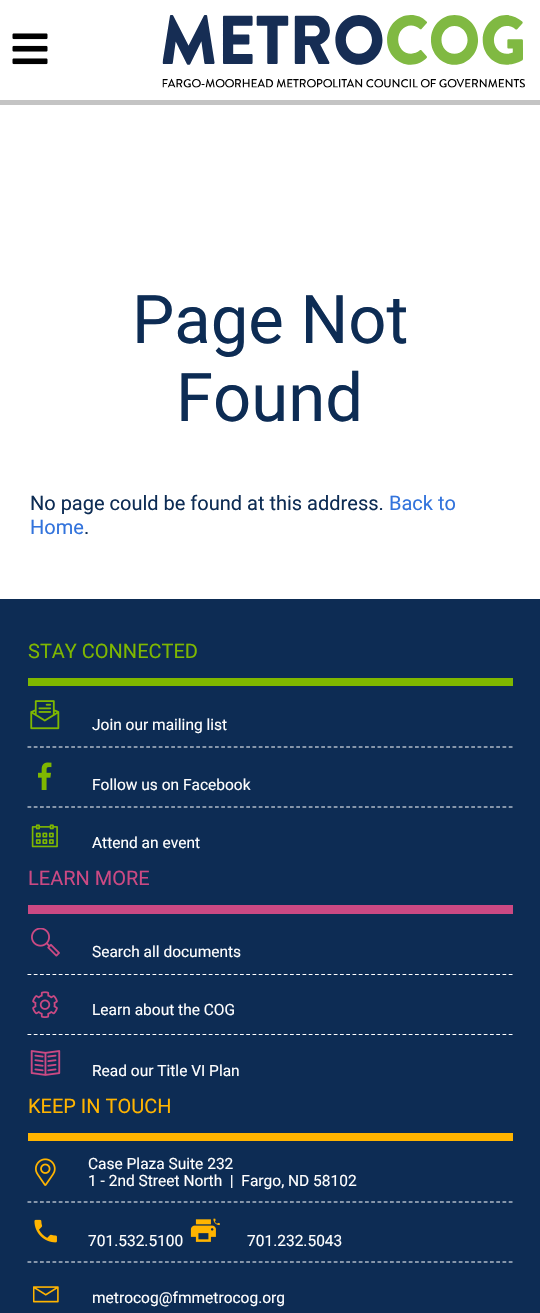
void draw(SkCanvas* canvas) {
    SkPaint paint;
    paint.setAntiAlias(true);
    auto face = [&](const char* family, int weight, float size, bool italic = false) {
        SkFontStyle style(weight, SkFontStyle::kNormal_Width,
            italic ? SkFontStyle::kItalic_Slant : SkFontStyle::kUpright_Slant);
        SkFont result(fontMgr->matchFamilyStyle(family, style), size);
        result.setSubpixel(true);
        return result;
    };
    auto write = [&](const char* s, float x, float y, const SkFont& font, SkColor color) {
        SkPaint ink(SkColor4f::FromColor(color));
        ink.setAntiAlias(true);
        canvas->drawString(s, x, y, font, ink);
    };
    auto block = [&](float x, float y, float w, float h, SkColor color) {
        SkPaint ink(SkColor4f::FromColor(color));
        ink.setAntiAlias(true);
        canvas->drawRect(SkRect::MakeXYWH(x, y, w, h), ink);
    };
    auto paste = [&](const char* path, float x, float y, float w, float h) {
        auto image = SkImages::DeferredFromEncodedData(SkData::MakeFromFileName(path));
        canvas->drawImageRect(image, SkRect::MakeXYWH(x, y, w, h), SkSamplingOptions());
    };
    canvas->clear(SK_ColorWHITE);
    block(0, 100, 540, 5, SkColorSetRGB(196, 196, 196));
    paste("pic1.png", 12, 33, 36, 32);
    paste("pic2.png", 162, 15, 363, 73);
    auto kFont1 = face("Roboto", 400, 67);
    write("Page Not", 132, 343, kFont1, SkColorSetRGB(13, 44, 84));
    write("Found", 176, 421, kFont1, SkColorSetRGB(13, 44, 84));
    auto kFont2 = face("Roboto", 400, 20);
    write("No page could be found at this address.", 30, 510, kFont2, SkColorSetRGB(13, 44, 84));
    write("Back to", 389, 510, kFont2, SkColorSetRGB(50, 115, 220));
    write("Home", 30, 534, kFont2, SkColorSetRGB(50, 115, 220));
    write(".", 84, 534, kFont2, SkColorSetRGB(13, 44, 84));
    block(0, 599, 540, 714, SkColorSetRGB(13, 44, 84));
    block(28, 678, 485, 8, SkColorSetRGB(127, 184, 0));
    write("STAY CONNECTED", 28, 658, kFont2, SkColorSetRGB(127, 184, 0));
    paste("pic3.png", 30, 700, 30, 30);
    auto kFont3 = face("Roboto", 400, 15.5f);
    write("Join our mailing list", 92, 730, kFont3, SK_ColorWHITE);
    paint.setStyle(SkPaint::kStroke_Style);
    paint.setStrokeWidth(1.2f);
    paint.setColor(SK_ColorWHITE);
    paint.setPathEffect(SkDashPathEffect::Make({{3.75f, 2.5f}}, 0));
    canvas->drawPath(SkPathBuilder().moveTo(27.5f, 747).lineTo(512.5f, 747).detach(), paint);
    paint.setPathEffect(nullptr);
    paste("pic4.png", 38, 762, 14, 28);
    write("Follow us on Facebook", 92, 790, kFont3, SK_ColorWHITE);
    paint.setPathEffect(SkDashPathEffect::Make({{3.75f, 2.5f}}, 0));
    canvas->drawPath(SkPathBuilder().moveTo(27.5f, 807).lineTo(512.5f, 807).detach(), paint);
    paint.setPathEffect(nullptr);
    paste("pic5.png", 31, 824, 27, 24);
    write("Attend an event", 92, 848, kFont3, SK_ColorWHITE);
    block(28, 905, 485, 9, SkColorSetRGB(203, 73, 131));
    write("LEARN MORE", 28, 885, kFont2, SkColorSetRGB(203, 73, 131));
    paste("pic6.png", 31, 928, 29, 29);
    write("Search all documents", 92, 957, kFont3, SK_ColorWHITE);
    paint.setPathEffect(SkDashPathEffect::Make({{3.75f, 2.5f}}, 0));
    canvas->drawPath(SkPathBuilder().moveTo(27.5f, 974.5f).lineTo(512.5f, 974.5f).detach(), paint);
    paint.setPathEffect(nullptr);
    paste("pic7.png", 32, 991, 26, 27);
    write("Learn about the COG", 92, 1015, kFont3, SK_ColorWHITE);
    paint.setPathEffect(SkDashPathEffect::Make({{3.75f, 2.5f}}, 0));
    canvas->drawPath(SkPathBuilder().moveTo(27.5f, 1034.5f).lineTo(512.5f, 1034.5f).detach(), paint);
    paint.setPathEffect(nullptr);
    paste("pic8.png", 30, 1050, 31, 26);
    write("Read our Title VI Plan", 92, 1076, kFont3, SK_ColorWHITE);
    block(28, 1133, 485, 8, SkColorSetRGB(255, 180, 0));
    write("KEEP IN TOUCH", 28, 1113, kFont2, SkColorSetRGB(255, 180, 0));
    paste("pic9.png", 35, 1158, 21, 28);
    write("Case Plaza Suite 232", 88, 1169, kFont3, SK_ColorWHITE);
    write("1 - 2nd Street North  |  Fargo, ND 58102", 88, 1186, kFont3, SK_ColorWHITE);
    paint.setPathEffect(SkDashPathEffect::Make({{3.75f, 2.5f}}, 0));
    canvas->drawPath(SkPathBuilder().moveTo(27.5f, 1202).lineTo(512.5f, 1202).detach(), paint);
    paint.setPathEffect(nullptr);
    paste("pic10.png", 34, 1219, 23, 24);
    write("701.532.5100", 88, 1246, kFont3, SK_ColorWHITE);
    paste("pic11.png", 190, 1218, 30, 24);
    write("701.232.5043", 247, 1246, kFont3, SK_ColorWHITE);
    paint.setPathEffect(SkDashPathEffect::Make({{3.75f, 2.5f}}, 0));
    canvas->drawPath(SkPathBuilder().moveTo(27.5f, 1262).lineTo(512.5f, 1262).detach(), paint);
    paint.setPathEffect(nullptr);
    paste("pic12.png", 33, 1286, 26, 17);
    write("metrocog@fmmetrocog.org", 92, 1303, kFont3, SK_ColorWHITE);
}
